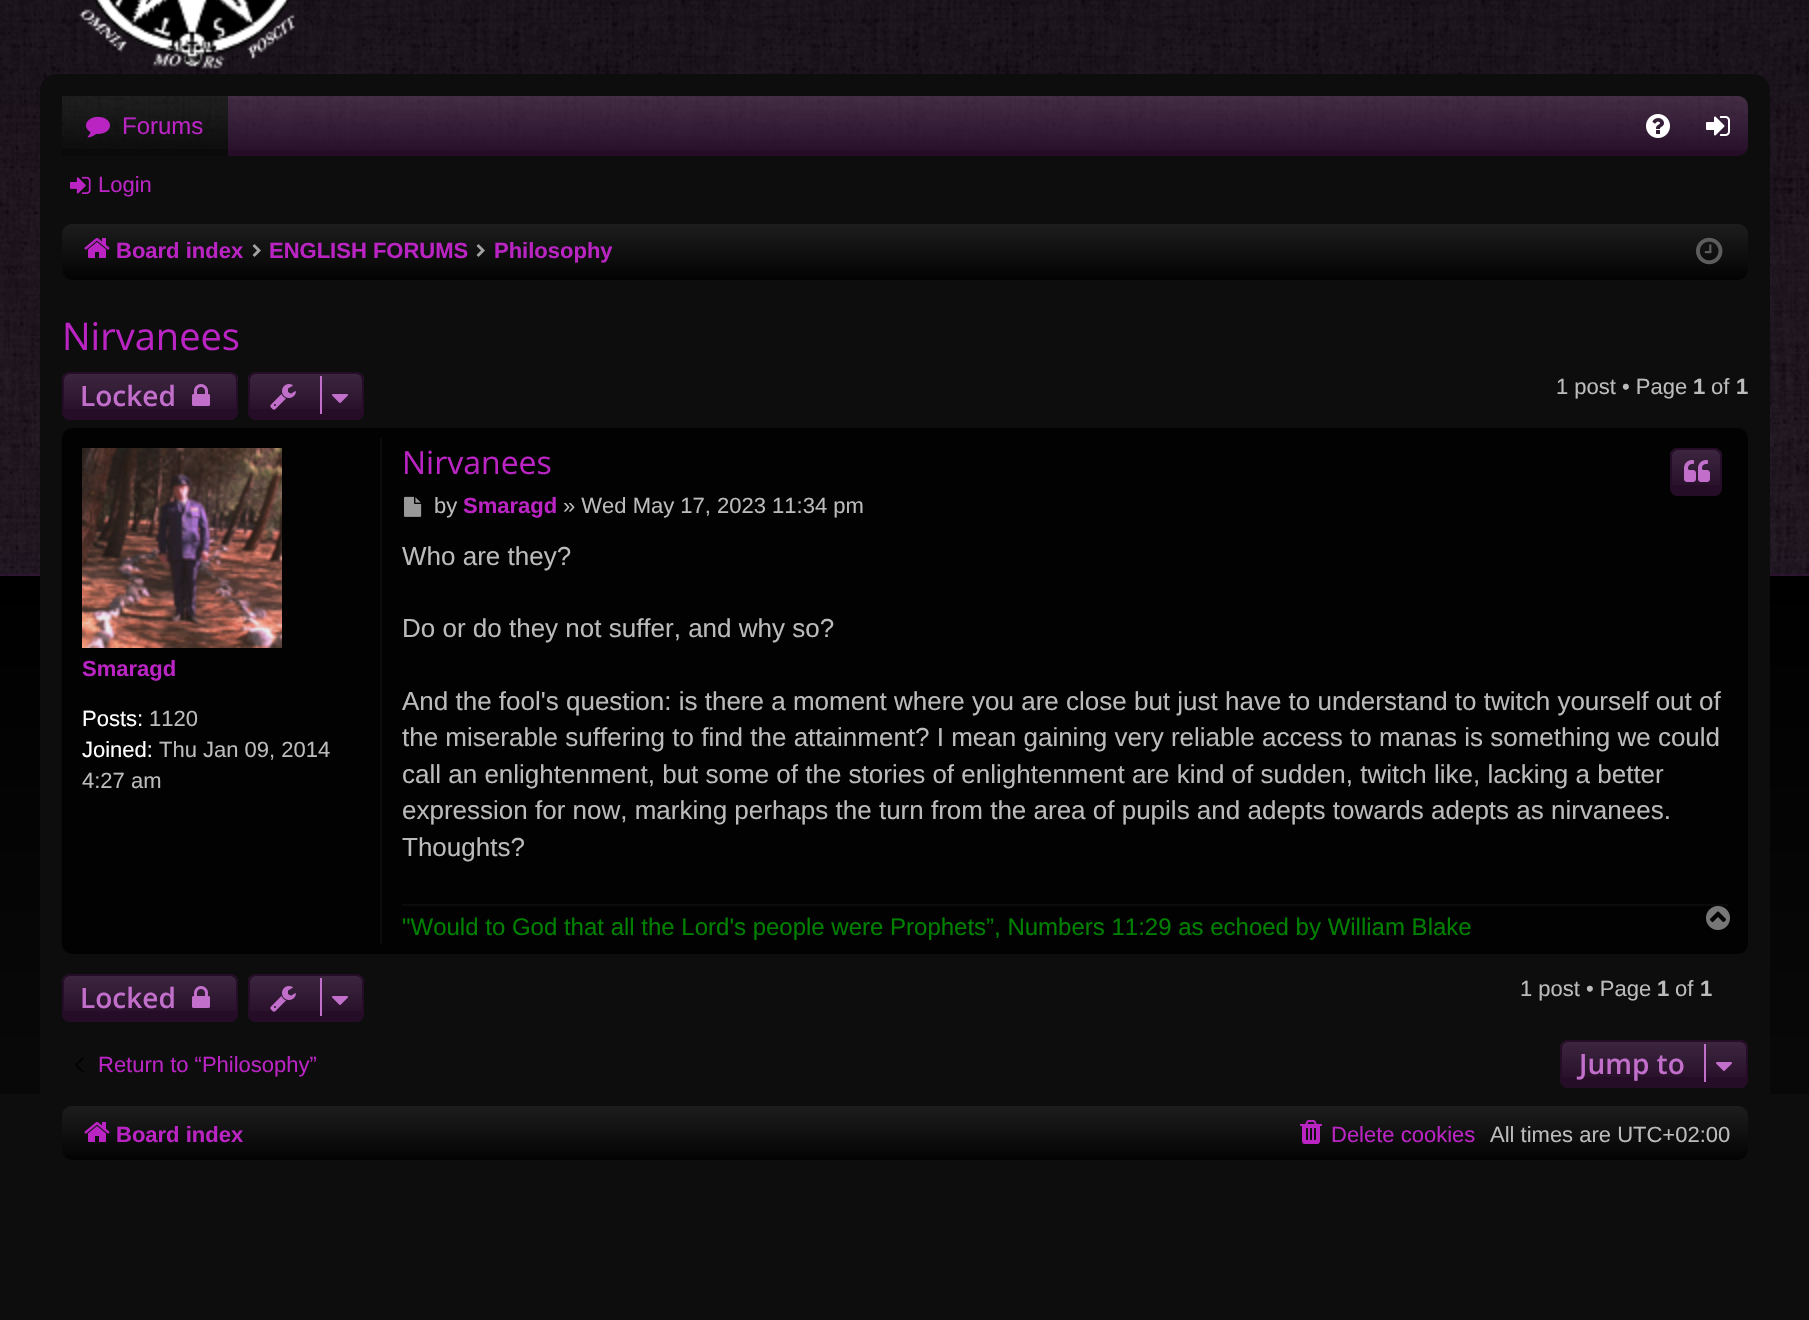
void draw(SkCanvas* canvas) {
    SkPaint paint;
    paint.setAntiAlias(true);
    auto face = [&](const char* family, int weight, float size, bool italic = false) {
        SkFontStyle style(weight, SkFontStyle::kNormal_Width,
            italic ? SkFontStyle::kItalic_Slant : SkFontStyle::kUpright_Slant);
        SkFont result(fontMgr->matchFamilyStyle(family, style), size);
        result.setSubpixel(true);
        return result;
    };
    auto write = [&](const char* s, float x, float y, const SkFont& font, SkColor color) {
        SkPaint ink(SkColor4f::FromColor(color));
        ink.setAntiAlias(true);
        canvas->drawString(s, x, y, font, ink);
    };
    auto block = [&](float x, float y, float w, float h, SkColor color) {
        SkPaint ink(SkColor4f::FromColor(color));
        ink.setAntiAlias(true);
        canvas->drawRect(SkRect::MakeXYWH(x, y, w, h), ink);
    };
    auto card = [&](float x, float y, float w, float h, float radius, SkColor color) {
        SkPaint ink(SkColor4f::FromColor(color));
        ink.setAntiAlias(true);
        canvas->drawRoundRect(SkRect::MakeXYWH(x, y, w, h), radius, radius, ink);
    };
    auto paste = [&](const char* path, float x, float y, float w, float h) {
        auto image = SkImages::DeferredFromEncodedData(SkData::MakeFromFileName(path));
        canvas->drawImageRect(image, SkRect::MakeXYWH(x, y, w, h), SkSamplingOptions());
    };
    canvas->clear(SkColorSetRGB(13, 13, 13));
    {
        const SkColor colors[] = {SK_ColorBLACK, SK_ColorBLACK, SkColorSetRGB(13, 13, 13)};
        const float stops[] = {0, 0.5f, 1};
        const SkPoint ends[] = {{905, -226}, {905, 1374}};
        paint.setShader(SkGradientShader::MakeLinear(ends, colors, stops, 3, SkTileMode::kClamp));
        paint.setAlpha(255);
    }
    canvas->drawRect(SkRect::MakeXYWH(0, 576, 1809, 518), paint);
    block(0, 0, 1809, 576, SkColorSetRGB(17, 6, 18));
    paste("pic1.png", 0, 0, 1809, 576);
    block(0, 574, 1809, 2, SkColorSetARGB(51, 127, 25, 133));
    paste("pic2.png", 79, 0, 216, 69);
    paint.setShader(nullptr);
    paint.setColor(SkColorSetRGB(13, 13, 13));
    canvas->drawRoundRect(SkRect::MakeXYWH(41, 75, 1728, 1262), 15, 15, paint);
    paint.setStyle(SkPaint::kStroke_Style);
    paint.setStrokeWidth(2);
    canvas->drawRoundRect(SkRect::MakeXYWH(41, 75, 1728, 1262), 15, 15, paint);
    card(62, 96, 1686, 60, 10, SkColorSetRGB(37, 12, 39));
    paste("pic3.png", 228, 96, 1520, 54);
    block(62, 96, 166, 60, SkColorSetRGB(11, 10, 11));
    paste("pic4.png", 62, 96, 166, 53);
    paste("pic5.png", 86, 116, 24, 22);
    auto kFont1 = face("Liberation Sans", 400, 24);
    write("Forums", 122, 134, kFont1, SkColorSetRGB(186, 36, 195));
    paste("pic6.png", 1646, 114, 24, 24);
    paste("pic7.png", 1706, 116, 24, 20);
    paste("pic8.png", 70, 176, 21, 18);
    auto kFont2 = face("Liberation Sans", 400, 22);
    write("Login", 98, 192, kFont2, SkColorSetRGB(186, 36, 195));
    card(62, 224, 1686, 56, 10, SkColorSetRGB(3, 3, 3));
    paint.setStyle(SkPaint::kFill_Style);
    {
        const SkColor colors[] = {SkColorSetARGB(26, 255, 255, 255), SkColorSetARGB(0, 255, 255, 255)};
        const float stops[] = {0, 1};
        const SkPoint ends[] = {{905, 224}, {905, 280}};
        paint.setShader(SkGradientShader::MakeLinear(ends, colors, stops, 2, SkTileMode::kClamp));
        paint.setAlpha(255);
    }
    canvas->drawRoundRect(SkRect::MakeXYWH(62, 224, 1686, 56), 10, 10, paint);
    paste("pic9.png", 84, 238, 26, 20);
    auto kFont3 = face("Liberation Sans", 700, 22);
    write("Board index", 116, 258, kFont3, SkColorSetRGB(186, 36, 195));
    paste("pic10.png", 252, 244, 9, 13);
    write("ENGLISH FORUMS", 269, 258, kFont3, SkColorSetRGB(186, 36, 195));
    paste("pic10.png", 476, 244, 9, 13);
    canvas->save();
    canvas->clipRect(SkRect::MakeXYWH(494, 228, 118, 44));
    write("Philosophy", 494, 258, kFont3, SkColorSetRGB(186, 36, 195));
    canvas->restore();
    paste("pic11.png", 1696, 237, 27, 28);
    auto kFont4 = face("Open Sans", 400, 38);
    write("Nirvanees", 62, 350, kFont4, SkColorSetRGB(186, 36, 195));
    card(62, 372, 176, 48, 8, SkColorSetRGB(37, 12, 39));
    canvas->save();
    canvas->clipPath(SkPathBuilder().moveTo(70, 372).lineTo(230, 372).cubicTo(234.5f, 372, 238, 375.5f, 238, 380).lineTo(238, 412).cubicTo(238, 416.5f, 234.5f, 420, 230, 420).lineTo(70, 420).cubicTo(65.5f, 420, 62, 416.5f, 62, 412).lineTo(62, 380).cubicTo(62, 375.5f, 65.5f, 372, 70, 372).close().detach(), true);
    {
        const SkColor colors[] = {SkColorSetARGB(26, 255, 255, 255), SkColorSetARGB(0, 255, 255, 255)};
        const float stops[] = {0, 1};
        const SkPoint ends[] = {{150, 374}, {150, 418}};
        paint.setShader(SkGradientShader::MakeLinear(ends, colors, stops, 2, SkTileMode::kClamp));
        paint.setAlpha(255);
    }
    canvas->drawRect(SkRect::MakeXYWH(62, 374, 176, 35), paint);
    canvas->restore();
    paint.setStyle(SkPaint::kStroke_Style);
    paint.setShader(nullptr);
    paint.setColor(SkColorSetRGB(37, 12, 39));
    canvas->drawRoundRect(SkRect::MakeXYWH(63, 373, 174, 46), 7, 7, paint);
    auto kFont5 = face("Open Sans", 600, 28);
    write("Locked", 80, 406, kFont5, SkColorSetRGB(194, 111, 203));
    paste("pic12.png", 192, 384, 18, 22);
    card(248, 372, 116, 48, 8, SkColorSetRGB(37, 12, 39));
    canvas->save();
    canvas->clipPath(SkPathBuilder().moveTo(256, 372).lineTo(356, 372).cubicTo(360.5f, 372, 364, 375.5f, 364, 380).lineTo(364, 412).cubicTo(364, 416.5f, 360.5f, 420, 356, 420).lineTo(256, 420).cubicTo(251.5f, 420, 248, 416.5f, 248, 412).lineTo(248, 380).cubicTo(248, 375.5f, 251.5f, 372, 256, 372).close().detach(), true);
    paint.setStyle(SkPaint::kFill_Style);
    {
        const SkColor colors[] = {SkColorSetARGB(26, 255, 255, 255), SkColorSetARGB(0, 255, 255, 255)};
        const float stops[] = {0, 1};
        const SkPoint ends[] = {{306, 374}, {306, 418}};
        paint.setShader(SkGradientShader::MakeLinear(ends, colors, stops, 2, SkTileMode::kClamp));
        paint.setAlpha(255);
    }
    canvas->drawRect(SkRect::MakeXYWH(248, 374, 116, 35), paint);
    canvas->restore();
    paint.setStyle(SkPaint::kStroke_Style);
    paint.setShader(nullptr);
    paint.setColor(SkColorSetRGB(37, 12, 39));
    canvas->drawRoundRect(SkRect::MakeXYWH(249, 373, 114, 46), 7, 7, paint);
    paste("pic13.png", 270, 384, 26, 26);
    block(320, 376, 2, 38, SkColorSetRGB(194, 111, 203));
    paste("pic14.png", 332, 394, 16, 9);
    write("1 post • Page", 1556, 394, kFont2, SkColorSetRGB(187, 187, 187));
    write("1", 1693, 394, kFont3, SkColorSetRGB(187, 187, 187));
    write("of", 1711, 394, kFont2, SkColorSetRGB(187, 187, 187));
    write("1", 1736, 394, kFont3, SkColorSetRGB(187, 187, 187));
    card(62, 428, 1686, 526, 10, SkColorSetRGB(2, 2, 2));
    block(380, 438, 2, 506, SkColorSetRGB(11, 11, 11));
    paste("pic15.png", 82, 448, 200, 200);
    write("Smaragd", 82, 676, kFont3, SkColorSetRGB(186, 36, 195));
    write("Posts:", 82, 726, kFont2, SK_ColorWHITE);
    write("1120", 149, 726, kFont2, SkColorSetRGB(187, 187, 187));
    write("Joined:", 82, 757, kFont2, SK_ColorWHITE);
    write("Thu Jan 09, 2014", 159, 757, kFont2, SkColorSetRGB(187, 187, 187));
    write("4:27 am", 82, 788, kFont2, SkColorSetRGB(187, 187, 187));
    auto kFont6 = face("Open Sans", 400, 32);
    write("Nirvanees", 402, 474, kFont6, SkColorSetRGB(186, 36, 195));
    card(1670, 448, 52, 48, 8, SkColorSetRGB(37, 12, 39));
    canvas->save();
    canvas->clipPath(SkPathBuilder().moveTo(1678, 448).lineTo(1714, 448).cubicTo(1718.5f, 448, 1722, 451.5f, 1722, 456).lineTo(1722, 488).cubicTo(1722, 492.5f, 1718.5f, 496, 1714, 496).lineTo(1678, 496).cubicTo(1673.5f, 496, 1670, 492.5f, 1670, 488).lineTo(1670, 456).cubicTo(1670, 451.5f, 1673.5f, 448, 1678, 448).close().detach(), true);
    paint.setStyle(SkPaint::kFill_Style);
    {
        const SkColor colors[] = {SkColorSetARGB(26, 255, 255, 255), SkColorSetARGB(0, 255, 255, 255)};
        const float stops[] = {0, 1};
        const SkPoint ends[] = {{1696, 450}, {1696, 494}};
        paint.setShader(SkGradientShader::MakeLinear(ends, colors, stops, 2, SkTileMode::kClamp));
        paint.setAlpha(255);
    }
    canvas->drawRect(SkRect::MakeXYWH(1670, 450, 52, 35), paint);
    canvas->restore();
    paint.setStyle(SkPaint::kStroke_Style);
    paint.setShader(nullptr);
    paint.setColor(SkColorSetRGB(37, 12, 39));
    canvas->drawRoundRect(SkRect::MakeXYWH(1671, 449, 50, 46), 7, 7, paint);
    paste("pic16.png", 1684, 460, 26, 22);
    paste("pic17.png", 404, 496, 18, 21);
    write("by", 434, 513, kFont2, SkColorSetRGB(187, 187, 187));
    write("Smaragd", 463, 513, kFont3, SkColorSetRGB(186, 36, 195));
    write("» Wed May 17, 2023 11:34 pm", 563, 513, kFont2, SkColorSetRGB(187, 187, 187));
    auto kFont7 = face("Liberation Sans", 400, 26);
    write("Who are they?", 402, 565, kFont7, SkColorSetRGB(187, 187, 187));
    write("Do or do they not suffer, and why so?", 402, 637, kFont7, SkColorSetRGB(187, 187, 187));
    write("And the fool's question: is there a moment where you are close but just have to understand to twitch yourself out of", 402, 710, kFont7, SkColorSetRGB(187, 187, 187));
    write("the miserable suffering to find the attainment? I mean gaining very reliable access to manas is something we could", 402, 746, kFont7, SkColorSetRGB(187, 187, 187));
    write("call an enlightenment, but some of the stories of enlightenment are kind of sudden, twitch like, lacking a better", 402, 783, kFont7, SkColorSetRGB(187, 187, 187));
    write("expression for now, marking perhaps the turn from the area of pupils and adepts towards adepts as nirvanees.", 402, 819, kFont7, SkColorSetRGB(187, 187, 187));
    write("Thoughts?", 402, 856, kFont7, SkColorSetRGB(187, 187, 187));
    block(402, 904, 1326, 2, SkColorSetRGB(11, 11, 11));
    write("\"Would to God that all the Lord's people were Prophets”, Numbers 11:29 as echoed by William Blake", 402, 935, kFont1, SkColorSetRGB(0, 128, 0));
    paste("pic18.png", 1706, 906, 24, 24);
    card(62, 974, 176, 48, 8, SkColorSetRGB(37, 12, 39));
    canvas->save();
    canvas->clipPath(SkPathBuilder().moveTo(70, 974).lineTo(230, 974).cubicTo(234.5f, 974, 238, 977.5f, 238, 982).lineTo(238, 1014).cubicTo(238, 1018.5f, 234.5f, 1022, 230, 1022).lineTo(70, 1022).cubicTo(65.5f, 1022, 62, 1018.5f, 62, 1014).lineTo(62, 982).cubicTo(62, 977.5f, 65.5f, 974, 70, 974).close().detach(), true);
    paint.setStyle(SkPaint::kFill_Style);
    {
        const SkColor colors[] = {SkColorSetARGB(26, 255, 255, 255), SkColorSetARGB(0, 255, 255, 255)};
        const float stops[] = {0, 1};
        const SkPoint ends[] = {{150, 976}, {150, 1020}};
        paint.setShader(SkGradientShader::MakeLinear(ends, colors, stops, 2, SkTileMode::kClamp));
        paint.setAlpha(255);
    }
    canvas->drawRect(SkRect::MakeXYWH(62, 976, 176, 35), paint);
    canvas->restore();
    paint.setStyle(SkPaint::kStroke_Style);
    paint.setShader(nullptr);
    paint.setColor(SkColorSetRGB(37, 12, 39));
    canvas->drawRoundRect(SkRect::MakeXYWH(63, 975, 174, 46), 7, 7, paint);
    write("Locked", 80, 1008, kFont5, SkColorSetRGB(194, 111, 203));
    paste("pic12.png", 192, 986, 18, 22);
    card(248, 974, 116, 48, 8, SkColorSetRGB(37, 12, 39));
    canvas->save();
    canvas->clipPath(SkPathBuilder().moveTo(256, 974).lineTo(356, 974).cubicTo(360.5f, 974, 364, 977.5f, 364, 982).lineTo(364, 1014).cubicTo(364, 1018.5f, 360.5f, 1022, 356, 1022).lineTo(256, 1022).cubicTo(251.5f, 1022, 248, 1018.5f, 248, 1014).lineTo(248, 982).cubicTo(248, 977.5f, 251.5f, 974, 256, 974).close().detach(), true);
    paint.setStyle(SkPaint::kFill_Style);
    {
        const SkColor colors[] = {SkColorSetARGB(26, 255, 255, 255), SkColorSetARGB(0, 255, 255, 255)};
        const float stops[] = {0, 1};
        const SkPoint ends[] = {{306, 976}, {306, 1020}};
        paint.setShader(SkGradientShader::MakeLinear(ends, colors, stops, 2, SkTileMode::kClamp));
        paint.setAlpha(255);
    }
    canvas->drawRect(SkRect::MakeXYWH(248, 976, 116, 35), paint);
    canvas->restore();
    paint.setStyle(SkPaint::kStroke_Style);
    paint.setShader(nullptr);
    paint.setColor(SkColorSetRGB(37, 12, 39));
    canvas->drawRoundRect(SkRect::MakeXYWH(249, 975, 114, 46), 7, 7, paint);
    paste("pic13.png", 270, 986, 26, 26);
    block(320, 978, 2, 38, SkColorSetRGB(194, 111, 203));
    paste("pic14.png", 332, 996, 16, 9);
    write("1 post • Page", 1520, 996, kFont2, SkColorSetRGB(187, 187, 187));
    write("1", 1657, 996, kFont3, SkColorSetRGB(187, 187, 187));
    write("of", 1675, 996, kFont2, SkColorSetRGB(187, 187, 187));
    write("1", 1700, 996, kFont3, SkColorSetRGB(187, 187, 187));
    paste("pic19.png", 75, 1057, 9, 16);
    write("Return to “Philosophy”", 98, 1072, kFont2, SkColorSetRGB(186, 36, 195));
    card(1560, 1040, 188, 48, 8, SkColorSetRGB(37, 12, 39));
    canvas->save();
    canvas->clipPath(SkPathBuilder().moveTo(1568, 1040).lineTo(1740, 1040).cubicTo(1744.5f, 1040, 1748, 1043.5f, 1748, 1048).lineTo(1748, 1080).cubicTo(1748, 1084.5f, 1744.5f, 1088, 1740, 1088).lineTo(1568, 1088).cubicTo(1563.5f, 1088, 1560, 1084.5f, 1560, 1080).lineTo(1560, 1048).cubicTo(1560, 1043.5f, 1563.5f, 1040, 1568, 1040).close().detach(), true);
    paint.setStyle(SkPaint::kFill_Style);
    {
        const SkColor colors[] = {SkColorSetARGB(26, 255, 255, 255), SkColorSetARGB(0, 255, 255, 255)};
        const float stops[] = {0, 1};
        const SkPoint ends[] = {{1654, 1042}, {1654, 1086}};
        paint.setShader(SkGradientShader::MakeLinear(ends, colors, stops, 2, SkTileMode::kClamp));
        paint.setAlpha(255);
    }
    canvas->drawRect(SkRect::MakeXYWH(1560, 1042, 188, 35), paint);
    canvas->restore();
    paint.setStyle(SkPaint::kStroke_Style);
    paint.setShader(nullptr);
    paint.setColor(SkColorSetRGB(37, 12, 39));
    canvas->drawRoundRect(SkRect::MakeXYWH(1561, 1041, 186, 46), 7, 7, paint);
    write("Jump to", 1579, 1074, kFont5, SkColorSetRGB(194, 111, 203));
    block(1704, 1044, 2, 38, SkColorSetRGB(194, 111, 203));
    paste("pic14.png", 1716, 1062, 16, 9);
    card(62, 1106, 1686, 54, 10, SkColorSetRGB(3, 3, 3));
    paint.setStyle(SkPaint::kFill_Style);
    {
        const SkColor colors[] = {SkColorSetARGB(26, 255, 255, 255), SkColorSetARGB(0, 255, 255, 255)};
        const float stops[] = {0, 1};
        const SkPoint ends[] = {{905, 1106}, {905, 1160}};
        paint.setShader(SkGradientShader::MakeLinear(ends, colors, stops, 2, SkTileMode::kClamp));
        paint.setAlpha(255);
    }
    canvas->drawRoundRect(SkRect::MakeXYWH(62, 1106, 1686, 54), 10, 10, paint);
    paste("pic20.png", 84, 1122, 26, 20);
    write("Board index", 116, 1142, kFont3, SkColorSetRGB(186, 36, 195));
    paste("pic21.png", 1300, 1120, 22, 24);
    write("Delete cookies", 1331, 1142, kFont2, SkColorSetRGB(186, 36, 195));
    write("All times are UTC+02:00", 1490, 1142, kFont2, SkColorSetRGB(187, 187, 187));
}
